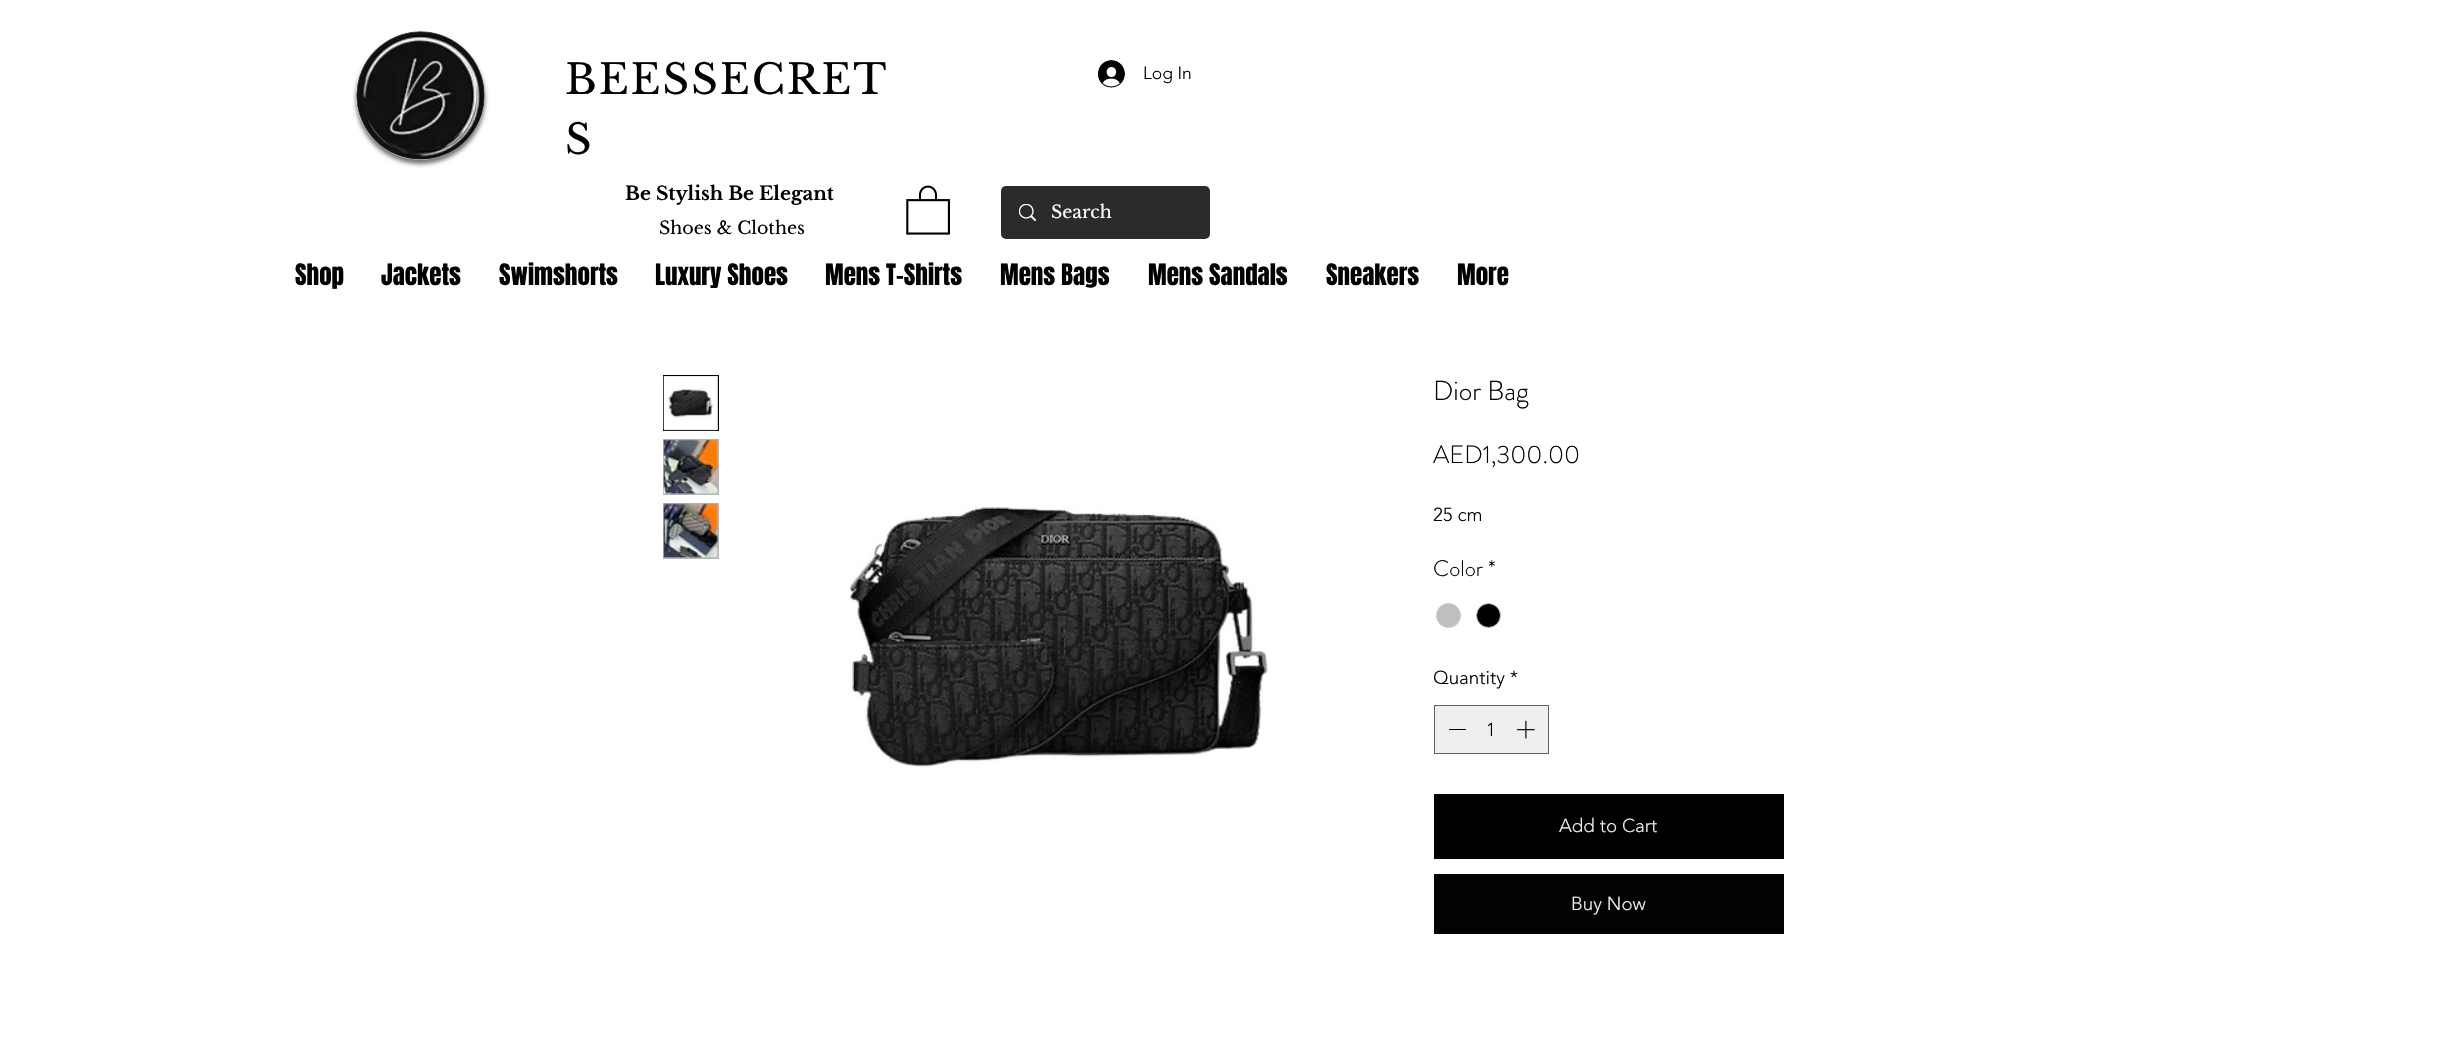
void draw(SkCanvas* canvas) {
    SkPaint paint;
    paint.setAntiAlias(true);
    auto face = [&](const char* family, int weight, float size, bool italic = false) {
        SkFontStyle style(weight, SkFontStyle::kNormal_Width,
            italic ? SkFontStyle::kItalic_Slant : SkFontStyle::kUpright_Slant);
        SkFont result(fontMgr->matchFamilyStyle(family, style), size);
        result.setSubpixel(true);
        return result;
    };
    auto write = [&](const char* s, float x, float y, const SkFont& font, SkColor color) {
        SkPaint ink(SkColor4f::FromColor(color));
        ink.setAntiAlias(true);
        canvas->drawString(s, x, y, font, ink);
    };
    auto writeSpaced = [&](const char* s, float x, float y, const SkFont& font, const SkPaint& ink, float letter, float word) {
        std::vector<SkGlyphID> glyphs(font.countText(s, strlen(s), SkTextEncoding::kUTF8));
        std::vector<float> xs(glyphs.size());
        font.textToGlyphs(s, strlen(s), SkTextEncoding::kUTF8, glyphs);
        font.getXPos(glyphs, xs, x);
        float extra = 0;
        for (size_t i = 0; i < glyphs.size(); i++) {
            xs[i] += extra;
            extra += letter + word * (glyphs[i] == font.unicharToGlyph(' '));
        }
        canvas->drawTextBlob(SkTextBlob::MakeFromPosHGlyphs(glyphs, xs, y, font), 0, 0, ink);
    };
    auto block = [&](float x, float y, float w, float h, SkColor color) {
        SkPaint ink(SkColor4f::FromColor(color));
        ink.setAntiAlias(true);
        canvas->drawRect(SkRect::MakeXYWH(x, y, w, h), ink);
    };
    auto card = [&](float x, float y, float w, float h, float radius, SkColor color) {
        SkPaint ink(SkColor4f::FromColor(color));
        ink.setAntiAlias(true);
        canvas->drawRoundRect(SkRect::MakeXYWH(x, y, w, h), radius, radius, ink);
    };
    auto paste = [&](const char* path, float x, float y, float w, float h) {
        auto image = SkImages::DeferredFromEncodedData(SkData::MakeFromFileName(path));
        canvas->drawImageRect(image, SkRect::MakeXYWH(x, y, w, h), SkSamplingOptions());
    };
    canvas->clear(SK_ColorWHITE);
    paint.setColor(SkColorSetARGB(140, 0, 0, 0));
    paint.setMaskFilter(SkMaskFilter::MakeBlur(kNormal_SkBlurStyle, 2));
    canvas->drawRoundRect(SkRect::MakeXYWH(356, 35, 129, 129), 64.5f, 64.5f, paint);
    paint.setMaskFilter(nullptr);
    paint.setColor(SkColorSetRGB(239, 239, 239));
    canvas->drawCircle(420.5f, 95.5f, 64.5f, paint);
    paste("pic1.png", 356, 31, 129, 129);
    auto kFont1 = face("Libre Baskerville", 400, 41.25f);
    paint.setColor(SkColorSetRGB(2, 2, 2));
    writeSpaced("BEESSECRET", 565, 94, kFont1, paint, 2, 0);
    writeSpaced("S", 565, 154, kFont1, paint, 2, 0);
    paste("pic2.png", 1098, 60, 27, 28);
    auto kFont2 = face("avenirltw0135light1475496", 300, 17.5f);
    write("Log In", 1143, 79, kFont2, SkColorSetRGB(2, 2, 2));
    auto kFont3 = face("Libre Baskerville", 700, 18.75f);
    write("Be Stylish Be Elegant", 625, 200, kFont3, SkColorSetRGB(2, 2, 2));
    auto kFont4 = face("Libre Baskerville", 400, 17.5f);
    write("Shoes & Clothes", 659, 234, kFont4, SkColorSetRGB(2, 2, 2));
    paste("pic3.png", 906, 185, 44, 50);
    card(1001, 186, 209, 53, 5, SkColorSetRGB(43, 43, 43));
    paste("pic4.png", 1019, 204, 17, 17);
    write("Search", 1051, 218, kFont4, SK_ColorWHITE);
    auto kFont5 = face("Anton", 400, 25);
    write("Shop", 295, 285, kFont5, SkColorSetRGB(2, 2, 2));
    write("Jackets", 381, 285, kFont5, SkColorSetRGB(2, 2, 2));
    write("Swimshorts", 499, 285, kFont5, SkColorSetRGB(2, 2, 2));
    write("Luxury Shoes", 655, 285, kFont5, SkColorSetRGB(2, 2, 2));
    write("Mens T-Shirts", 825, 285, kFont5, SkColorSetRGB(2, 2, 2));
    write("Mens Bags", 1000, 285, kFont5, SkColorSetRGB(2, 2, 2));
    write("Mens Sandals", 1148, 285, kFont5, SkColorSetRGB(2, 2, 2));
    write("Sneakers", 1326, 285, kFont5, SkColorSetRGB(2, 2, 2));
    write("More", 1457, 285, kFont5, SkColorSetRGB(2, 2, 2));
    paint.setColor(SkColorSetRGB(180, 180, 180));
    canvas->drawRect(SkRect::MakeXYWH(663.5f, 375.5f, 55, 55), paint);
    paint.setStyle(SkPaint::kStroke_Style);
    paint.setStrokeWidth(1);
    paint.setColor(SkColorSetRGB(2, 2, 2));
    canvas->drawRect(SkRect::MakeXYWH(663.5f, 375.5f, 55, 55), paint);
    paste("pic5.png", 663, 376, 55, 55);
    block(663, 439, 56, 56, SkColorSetRGB(180, 180, 180));
    paste("pic6.png", 663, 439, 55, 56);
    block(663, 503, 56, 56, SkColorSetRGB(180, 180, 180));
    paste("pic7.png", 663, 503, 55, 55);
    paste("pic8.png", 849, 507, 419, 260);
    auto kFont6 = face("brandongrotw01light", 300, 27.5f);
    write("Dior Bag", 1433, 400, kFont6, SkColorSetRGB(2, 2, 2));
    auto kFont7 = face("brandongrotw01light", 300, 25);
    write("AED1,300.00", 1433, 463, kFont7, SkColorSetRGB(2, 2, 2));
    auto kFont8 = face("avenirltw0135light1475496", 300, 18.75f);
    write("25 cm", 1433, 521, kFont8, SkColorSetRGB(2, 2, 2));
    auto kFont9 = face("brandongrotw01light", 300, 22.5f);
    write("Color *", 1433, 576, kFont9, SkColorSetRGB(2, 2, 2));
    paint.setStyle(SkPaint::kFill_Style);
    paint.setColor(SkColorSetRGB(191, 191, 191));
    canvas->drawCircle(1448.5f, 615.5f, 12, paint);
    paint.setStyle(SkPaint::kStroke_Style);
    paint.setColor(SkColorSetRGB(201, 201, 201));
    canvas->drawCircle(1448.5f, 615.5f, 12, paint);
    paint.setStyle(SkPaint::kFill_Style);
    paint.setColor(SK_ColorBLACK);
    canvas->drawCircle(1488.5f, 615.5f, 12, paint);
    paint.setStyle(SkPaint::kStroke_Style);
    paint.setColor(SkColorSetRGB(201, 201, 201));
    canvas->drawCircle(1488.5f, 615.5f, 12, paint);
    write("Quantity *", 1433, 684, kFont8, SkColorSetRGB(2, 2, 2));
    paint.setStyle(SkPaint::kFill_Style);
    paint.setColor(SkColorSetRGB(239, 239, 239));
    canvas->drawRect(SkRect::MakeXYWH(1434.5f, 705.5f, 114, 48), paint);
    paint.setStyle(SkPaint::kStroke_Style);
    paint.setColor(SkColorSetRGB(97, 97, 97));
    canvas->drawRect(SkRect::MakeXYWH(1434.5f, 705.5f, 114, 48), paint);
    block(1449, 729, 17, 1, SkColorSetRGB(2, 2, 2));
    write("1", 1486, 736, kFont8, SkColorSetRGB(2, 2, 2));
    paste("pic9.png", 1517, 720, 18, 19);
    block(1434, 794, 350, 65, SK_ColorBLACK);
    write("Add to Cart", 1559, 832, kFont8, SkColorSetRGB(239, 239, 239));
    block(1434, 874, 350, 60, SkColorSetRGB(2, 2, 2));
    write("Buy Now", 1571, 910, kFont8, SkColorSetRGB(239, 239, 239));
}
